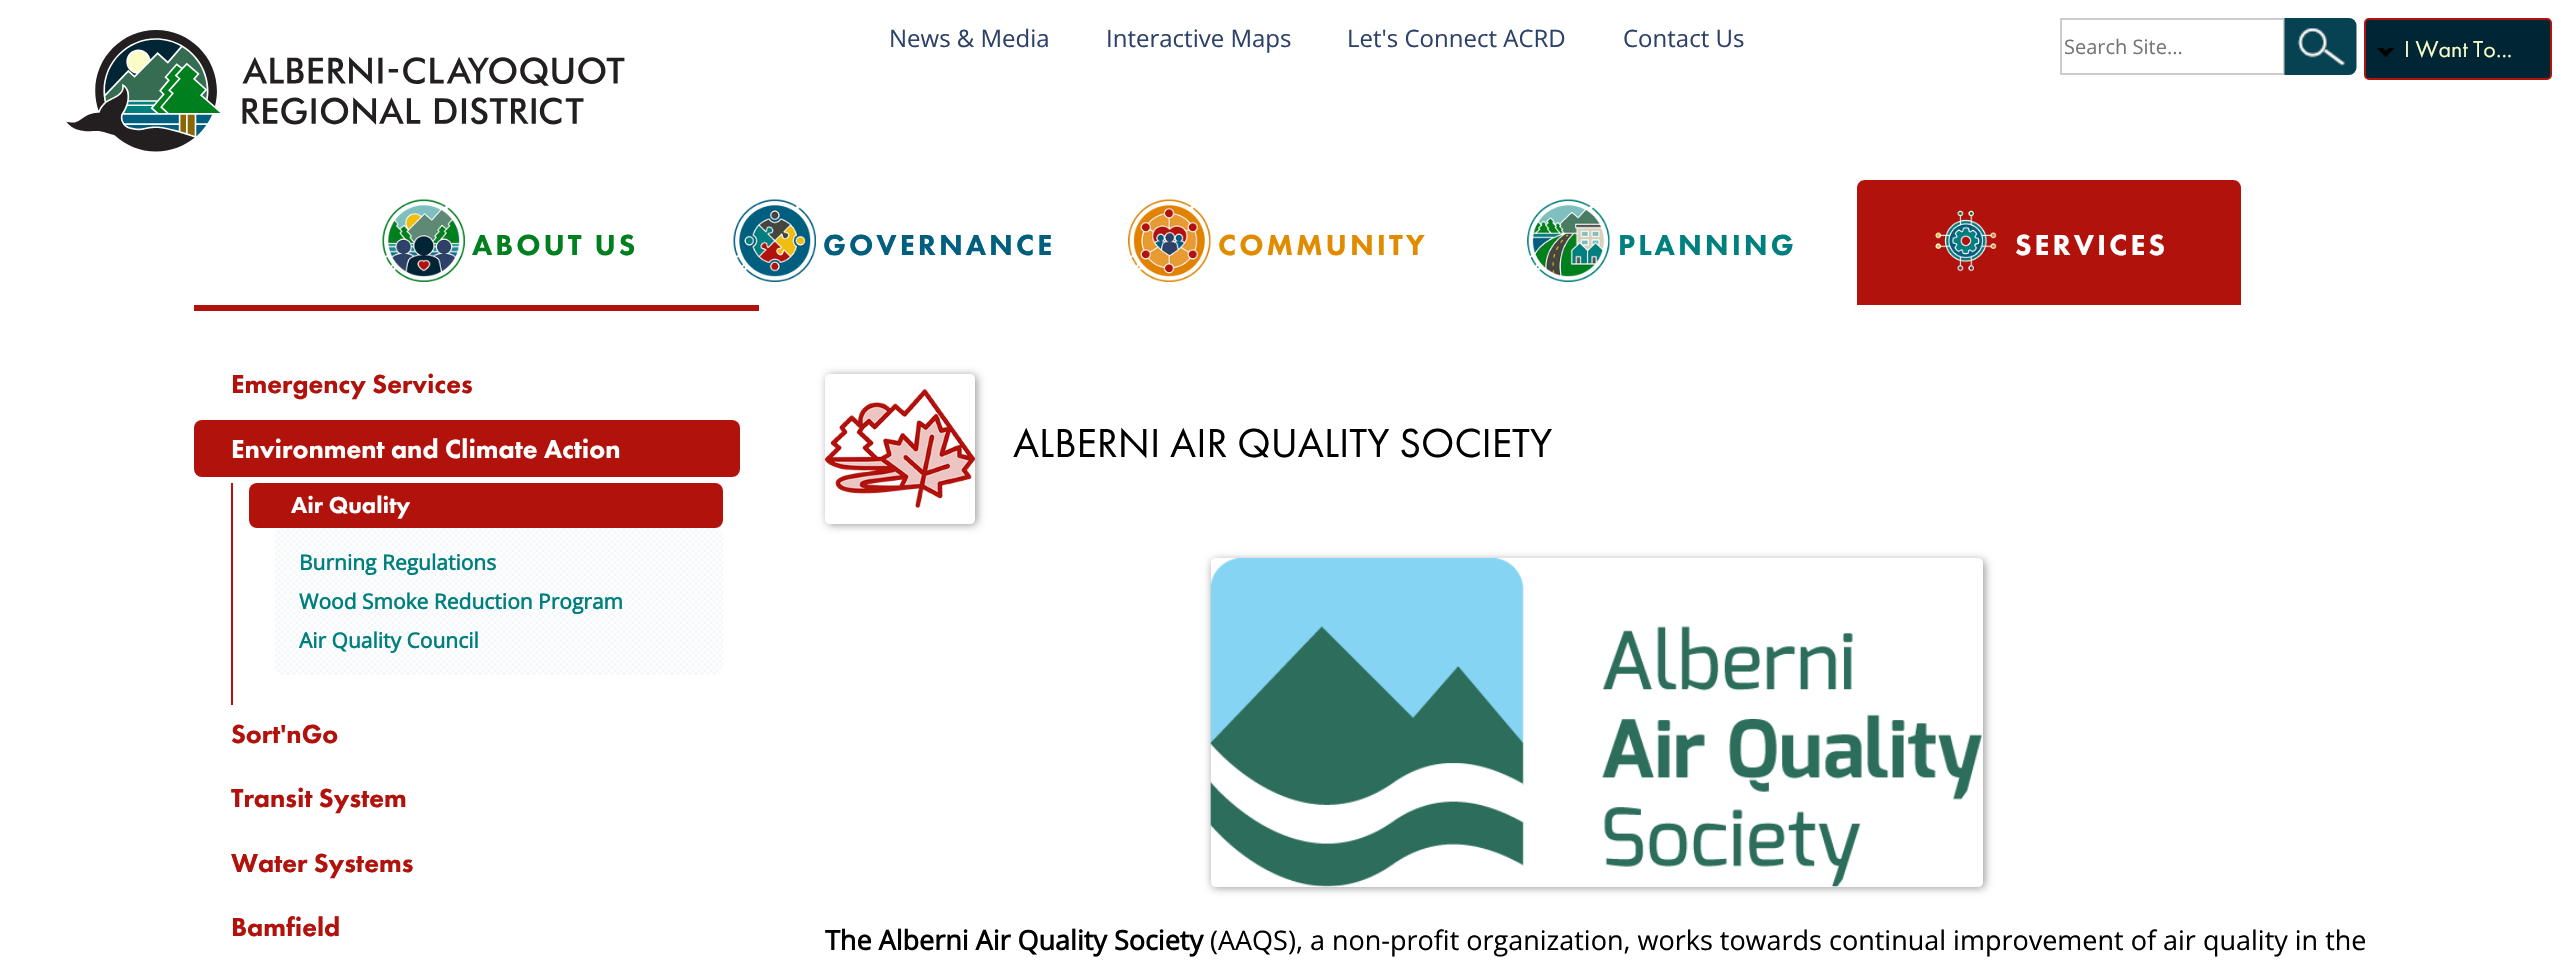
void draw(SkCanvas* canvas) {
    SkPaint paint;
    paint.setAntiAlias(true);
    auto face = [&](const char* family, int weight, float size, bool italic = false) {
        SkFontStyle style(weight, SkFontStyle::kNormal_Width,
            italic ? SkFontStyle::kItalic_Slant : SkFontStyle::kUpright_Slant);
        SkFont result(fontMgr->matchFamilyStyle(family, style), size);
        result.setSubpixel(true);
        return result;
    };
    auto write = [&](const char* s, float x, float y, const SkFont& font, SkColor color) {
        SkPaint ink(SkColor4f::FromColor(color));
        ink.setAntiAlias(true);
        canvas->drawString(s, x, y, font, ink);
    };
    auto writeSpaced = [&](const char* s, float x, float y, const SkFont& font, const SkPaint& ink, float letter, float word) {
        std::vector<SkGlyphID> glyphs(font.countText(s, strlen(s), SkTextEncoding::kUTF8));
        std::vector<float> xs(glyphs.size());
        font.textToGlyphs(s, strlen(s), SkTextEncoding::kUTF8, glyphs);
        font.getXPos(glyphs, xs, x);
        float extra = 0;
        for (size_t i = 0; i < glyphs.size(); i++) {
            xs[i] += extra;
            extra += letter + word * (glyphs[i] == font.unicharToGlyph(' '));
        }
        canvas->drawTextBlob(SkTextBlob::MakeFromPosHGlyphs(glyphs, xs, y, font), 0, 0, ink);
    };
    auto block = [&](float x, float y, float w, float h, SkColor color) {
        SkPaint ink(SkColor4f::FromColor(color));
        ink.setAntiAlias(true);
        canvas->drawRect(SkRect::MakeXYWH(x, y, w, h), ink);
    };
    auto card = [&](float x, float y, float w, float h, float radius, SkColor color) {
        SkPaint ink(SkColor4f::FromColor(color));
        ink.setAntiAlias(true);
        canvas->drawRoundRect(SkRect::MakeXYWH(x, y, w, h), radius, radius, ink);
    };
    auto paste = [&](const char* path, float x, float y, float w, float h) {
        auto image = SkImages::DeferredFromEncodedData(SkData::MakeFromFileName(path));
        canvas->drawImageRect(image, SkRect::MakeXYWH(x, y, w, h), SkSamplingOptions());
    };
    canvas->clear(SK_ColorWHITE);
    paste("pic1.png", 66, 30, 559, 122);
    auto kFont1 = face("Open Sans", 400, 24);
    write("News & Media", 889, 47, kFont1, SkColorSetRGB(45, 65, 105));
    write("Interactive Maps", 1106, 47, kFont1, SkColorSetRGB(45, 65, 105));
    write("Let's Connect ACRD", 1347, 47, kFont1, SkColorSetRGB(45, 65, 105));
    write("Contact Us", 1623, 47, kFont1, SkColorSetRGB(45, 65, 105));
    paint.setStyle(SkPaint::kStroke_Style);
    paint.setStrokeWidth(2);
    paint.setColor(SkColorSetRGB(204, 204, 204));
    canvas->drawRect(SkRect::MakeXYWH(2061, 19, 223, 55), paint);
    auto kFont2 = face("Open Sans", 400, 20);
    write("Search Site...", 2064, 54, kFont2, SkColorSetRGB(117, 117, 117));
    paste("pic2.png", 2284, 18, 73, 57);
    paint.setStyle(SkPaint::kFill_Style);
    paint.setColor(SkColorSetRGB(0, 38, 53));
    canvas->drawRoundRect(SkRect::MakeXYWH(2365, 19, 186, 60), 4, 4, paint);
    paint.setStyle(SkPaint::kStroke_Style);
    paint.setColor(SkColorSetRGB(178, 18, 12));
    canvas->drawRoundRect(SkRect::MakeXYWH(2365, 19, 186, 60), 4, 4, paint);
    paste("pic3.png", 2377, 48, 17, 9);
    auto kFont3 = face("Futura PT", 400, 24);
    write("I Want To...", 2404, 57, kFont3, SkColorSetRGB(252, 252, 201));
    paste("pic4.png", 382, 199, 83, 83);
    auto kFont4 = face("Futura PT", 900, 30);
    paint.setStyle(SkPaint::kFill_Style);
    paint.setColor(SkColorSetRGB(0, 127, 31));
    writeSpaced("ABOUT US", 472, 255, kFont4, paint, 3, 0);
    paste("pic5.png", 733, 199, 83, 83);
    paint.setColor(SkColorSetRGB(0, 95, 127));
    writeSpaced("GOVERNANCE", 823, 255, kFont4, paint, 3, 0);
    paste("pic6.png", 1128, 199, 83, 83);
    paint.setColor(SkColorSetRGB(225, 140, 0));
    writeSpaced("COMMUNITY", 1218, 255, kFont4, paint, 3, 0);
    paste("pic7.png", 1527, 199, 83, 83);
    paint.setColor(SkColorSetRGB(0, 127, 127));
    writeSpaced("PLANNING", 1618, 255, kFont4, paint, 3, 0);
    paint.setColor(SkColorSetRGB(178, 18, 12));
    canvas->drawPath(SkPathBuilder().moveTo(1865, 180).lineTo(2233, 180).cubicTo(2237.5f, 180, 2241, 183.5f, 2241, 188).lineTo(2241, 305).lineTo(1857, 305).lineTo(1857, 188).cubicTo(1857, 183.5f, 1860.5f, 180, 1865, 180).close().detach(), paint);
    paste("pic8.png", 1934, 210, 63, 62);
    paint.setColor(SK_ColorWHITE);
    writeSpaced("SERVICES", 2015, 255, kFont4, paint, 3, 0);
    block(194, 305, 565, 6, SkColorSetRGB(178, 18, 12));
    auto kFont5 = face("Futura PT", 900, 27);
    write("Emergency Services", 231, 393, kFont5, SkColorSetRGB(178, 18, 12));
    card(194, 420, 546, 57, 8, SkColorSetRGB(178, 18, 12));
    write("Environment and Climate Action", 231, 458, kFont5, SK_ColorWHITE);
    block(231, 483, 2, 222, SkColorSetRGB(178, 18, 12));
    card(249, 483, 474, 45, 8, SkColorSetRGB(178, 18, 12));
    auto kFont6 = face("Futura PT", 900, 24);
    write("Air Quality", 291, 513, kFont6, SK_ColorWHITE);
    paste("pic9.png", 275, 528, 448, 147);
    auto kFont7 = face("Open Sans", 700, 21);
    write("Burning Regulations", 299, 570, kFont7, SkColorSetRGB(0, 127, 127));
    write("Wood Smoke Reduction Program", 299, 609, kFont7, SkColorSetRGB(0, 127, 127));
    write("Air Quality Council", 299, 648, kFont7, SkColorSetRGB(0, 127, 127));
    write("Sort'nGo", 231, 743, kFont5, SkColorSetRGB(178, 18, 12));
    write("Transit System", 231, 807, kFont5, SkColorSetRGB(178, 18, 12));
    write("Water Systems", 231, 872, kFont5, SkColorSetRGB(178, 18, 12));
    write("Bamfield", 231, 936, kFont5, SkColorSetRGB(178, 18, 12));
    canvas->save();
    canvas->clipPath(SkPathBuilder(SkPathFillType::kEvenOdd).moveTo(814, 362).lineTo(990, 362).lineTo(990, 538).lineTo(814, 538).close().moveTo(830, 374).lineTo(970, 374).cubicTo(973, 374, 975, 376, 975, 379).lineTo(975, 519).cubicTo(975, 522, 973, 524, 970, 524).lineTo(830, 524).cubicTo(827, 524, 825, 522, 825, 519).lineTo(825, 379).cubicTo(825, 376, 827, 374, 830, 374).close().detach(), true);
    paint.setColor(SkColorSetARGB(102, 0, 0, 0));
    paint.setMaskFilter(SkMaskFilter::MakeBlur(kNormal_SkBlurStyle, 4));
    canvas->drawRoundRect(SkRect::MakeXYWH(827, 375, 150, 150), 5, 5, paint);
    paint.setMaskFilter(nullptr);
    canvas->restore();
    paste("pic10.png", 825, 389, 150, 119);
    auto kFont8 = face("Futura PT", 400, 42);
    write("ALBERNI AIR QUALITY SOCIETY", 1013, 457, kFont8, SK_ColorBLACK);
    canvas->save();
    canvas->clipPath(SkPathBuilder(SkPathFillType::kEvenOdd).moveTo(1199, 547).lineTo(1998, 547).lineTo(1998, 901).lineTo(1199, 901).close().moveTo(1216, 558).lineTo(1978, 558).cubicTo(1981, 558, 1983, 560, 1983, 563).lineTo(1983, 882).cubicTo(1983, 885, 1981, 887, 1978, 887).lineTo(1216, 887).cubicTo(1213, 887, 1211, 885, 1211, 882).lineTo(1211, 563).cubicTo(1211, 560, 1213, 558, 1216, 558).close().detach(), true);
    paint.setMaskFilter(SkMaskFilter::MakeBlur(kNormal_SkBlurStyle, 4));
    canvas->drawRoundRect(SkRect::MakeXYWH(1212, 560, 773, 328), 5, 5, paint);
    paint.setMaskFilter(nullptr);
    canvas->restore();
    paste("pic11.png", 1210, 558, 772, 329);
    auto kFont9 = face("Open Sans", 700, 27);
    write("The Alberni Air Quality Society", 825, 950, kFont9, SK_ColorBLACK);
    auto kFont10 = face("Open Sans", 400, 27);
    write("(AAQS), a non-profit organization, works towards continual improvement of air quality in the", 1210, 950, kFont10, SK_ColorBLACK);
}
